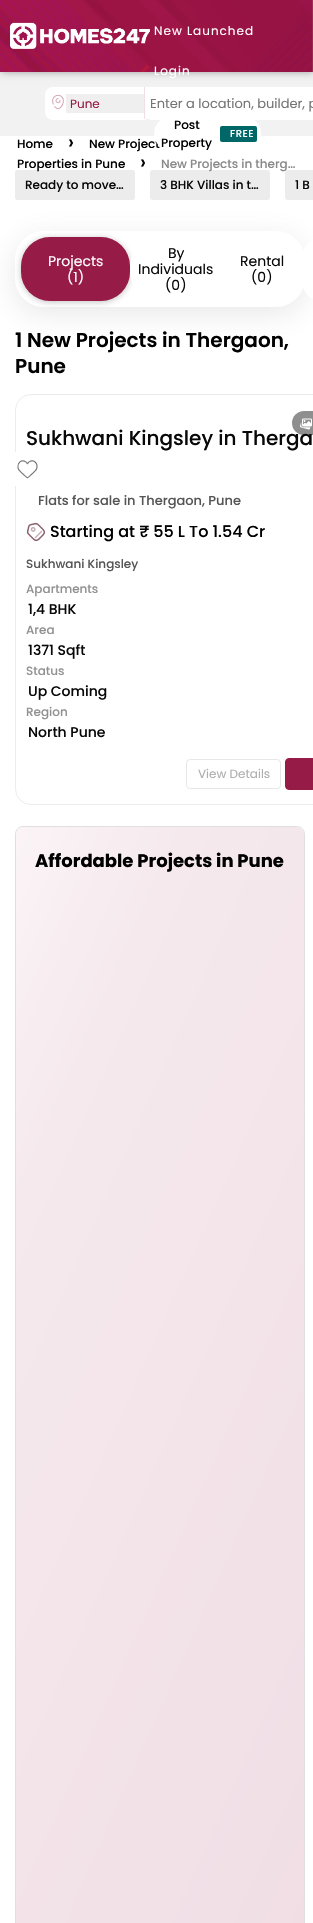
void draw(SkCanvas* canvas) {
    SkPaint paint;
    paint.setAntiAlias(true);
    auto face = [&](const char* family, int weight, float size, bool italic = false) {
        SkFontStyle style(weight, SkFontStyle::kNormal_Width,
            italic ? SkFontStyle::kItalic_Slant : SkFontStyle::kUpright_Slant);
        SkFont result(fontMgr->matchFamilyStyle(family, style), size);
        result.setSubpixel(true);
        return result;
    };
    auto write = [&](const char* s, float x, float y, const SkFont& font, SkColor color) {
        SkPaint ink(SkColor4f::FromColor(color));
        ink.setAntiAlias(true);
        canvas->drawString(s, x, y, font, ink);
    };
    auto writeSpaced = [&](const char* s, float x, float y, const SkFont& font, const SkPaint& ink, float letter, float word) {
        std::vector<SkGlyphID> glyphs(font.countText(s, strlen(s), SkTextEncoding::kUTF8));
        std::vector<float> xs(glyphs.size());
        font.textToGlyphs(s, strlen(s), SkTextEncoding::kUTF8, glyphs);
        font.getXPos(glyphs, xs, x);
        float extra = 0;
        for (size_t i = 0; i < glyphs.size(); i++) {
            xs[i] += extra;
            extra += letter + word * (glyphs[i] == font.unicharToGlyph(' '));
        }
        canvas->drawTextBlob(SkTextBlob::MakeFromPosHGlyphs(glyphs, xs, y, font), 0, 0, ink);
    };
    auto block = [&](float x, float y, float w, float h, SkColor color) {
        SkPaint ink(SkColor4f::FromColor(color));
        ink.setAntiAlias(true);
        canvas->drawRect(SkRect::MakeXYWH(x, y, w, h), ink);
    };
    auto card = [&](float x, float y, float w, float h, float radius, SkColor color) {
        SkPaint ink(SkColor4f::FromColor(color));
        ink.setAntiAlias(true);
        canvas->drawRoundRect(SkRect::MakeXYWH(x, y, w, h), radius, radius, ink);
    };
    auto paste = [&](const char* path, float x, float y, float w, float h) {
        auto image = SkImages::DeferredFromEncodedData(SkData::MakeFromFileName(path));
        canvas->drawImageRect(image, SkRect::MakeXYWH(x, y, w, h), SkSamplingOptions());
    };
    canvas->clear(SK_ColorWHITE);
    block(0, 64, 313, 72, SkColorSetRGB(242, 242, 242));
    paint.setColor(SkColorSetARGB(89, 0, 0, 0));
    paint.setMaskFilter(SkMaskFilter::MakeBlur(kNormal_SkBlurStyle, 4));
    canvas->drawRect(SkRect::MakeXYWH(1, 0, 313, 72), paint);
    paint.setMaskFilter(nullptr);
    paste("pic1.png", 0, 0, 313, 72);
    paste("pic2.png", 10, 22, 140, 27);
    auto kFont1 = face("Poppins", 400, 12);
    paint.setColor(SK_ColorWHITE);
    writeSpaced("New Launched", 154, 35, kFont1, paint, 1, 0);
    writeSpaced("Login", 154, 75, kFont1, paint, 1, 0);
    block(150, 87, 163, 33, SK_ColorWHITE);
    auto kFont2 = face("Poppins", 500, 12);
    write("New Project", 89, 148, kFont2, SK_ColorBLACK);
    card(154, 116, 107, 35, 17.5f, SK_ColorWHITE);
    write("Post", 174, 129, kFont2, SK_ColorBLACK);
    card(220, 126, 37, 16, 2, SkColorSetRGB(0, 103, 105));
    auto kFont3 = face("Poppins", 500, 10);
    writeSpaced("FREE", 230, 137, kFont3, paint, 0.5f, 0);
    write("Property", 161, 147, kFont2, SK_ColorBLACK);
    canvas->drawPath(SkPathBuilder().moveTo(53, 87).lineTo(146, 87).lineTo(146, 120).lineTo(53, 120).cubicTo(48.5f, 120, 45, 116.5f, 45, 112).lineTo(45, 95).cubicTo(45, 90.5f, 48.5f, 87, 53, 87).close().detach(), paint);
    paste("pic3.png", 52, 94, 12, 16);
    block(66, 94, 78, 19, SkColorSetRGB(239, 239, 239));
    write("Pune", 70, 108, kFont1, SkColorSetRGB(151, 27, 71));
    block(146, 87, 4, 32, SK_ColorWHITE);
    block(144, 87, 1, 32, SkColorSetRGB(240, 223, 229));
    auto kFont4 = face("Poppins", 400, 13);
    write("Enter a location, builder, p", 150, 108, kFont4, SkColorSetRGB(117, 117, 117));
    write("Home", 17, 148, kFont2, SK_ColorBLACK);
    auto kFont5 = face("Poppins", 500, 20);
    write("›", 68, 149, kFont5, SK_ColorBLACK);
    card(15, 170, 120, 30, 3, SkColorSetRGB(236, 236, 236));
    write("Properties in Pune", 17, 168, kFont2, SK_ColorBLACK);
    write("›", 140, 169, kFont5, SK_ColorBLACK);
    card(150, 170, 120, 30, 3, SkColorSetRGB(236, 236, 236));
    card(285, 170, 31, 30, 3, SkColorSetRGB(236, 236, 236));
    write("New Projects in therg…", 161, 168, kFont2, SkColorSetRGB(137, 137, 137));
    write("Ready to move…", 25, 189, kFont2, SkColorSetRGB(8, 8, 8));
    write("3 BHK Villas in t…", 160, 189, kFont2, SkColorSetRGB(8, 8, 8));
    write("1 B", 295, 189, kFont2, SkColorSetRGB(8, 8, 8));
    canvas->save();
    canvas->clipPath(SkPathBuilder(SkPathFillType::kEvenOdd).moveTo(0, 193).lineTo(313, 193).lineTo(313, 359).lineTo(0, 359).close().moveTo(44, 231).lineTo(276, 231).cubicTo(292, 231, 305, 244, 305, 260).lineTo(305, 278).cubicTo(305, 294, 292, 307, 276, 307).lineTo(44, 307).cubicTo(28, 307, 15, 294, 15, 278).lineTo(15, 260).cubicTo(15, 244, 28, 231, 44, 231).close().detach(), true);
    paint.setColor(SkColorSetARGB(38, 100, 100, 111));
    paint.setMaskFilter(SkMaskFilter::MakeBlur(kNormal_SkBlurStyle, 14.5f));
    canvas->drawRoundRect(SkRect::MakeXYWH(15, 238, 290, 76), 29, 29, paint);
    paint.setMaskFilter(nullptr);
    canvas->restore();
    paint.setColor(SkColorSetARGB(71, 32, 33, 36));
    paint.setMaskFilter(SkMaskFilter::MakeBlur(kNormal_SkBlurStyle, 3));
    canvas->drawRoundRect(SkRect::MakeXYWH(21, 238, 109, 64), 29, 29, paint);
    paint.setMaskFilter(nullptr);
    card(21, 237, 109, 64, 29, SkColorSetRGB(151, 27, 71));
    paint.setStyle(SkPaint::kStroke_Style);
    paint.setStrokeWidth(1);
    paint.setColor(SkColorSetARGB(51, 151, 27, 71));
    canvas->drawRoundRect(SkRect::MakeXYWH(21.5f, 237.5f, 108, 63), 28.5f, 28.5f, paint);
    auto kFont6 = face("Poppins", 400, 14);
    write("Projects", 48, 266, kFont6, SK_ColorWHITE);
    write("(1)", 67, 282, kFont6, SK_ColorWHITE);
    card(130, 237, 92, 64, 29, SK_ColorWHITE);
    write("By", 168, 258, kFont6, SkColorSetRGB(8, 8, 8));
    write("Individuals", 138, 274, kFont6, SkColorSetRGB(8, 8, 8));
    write("(0)", 165, 290, kFont6, SkColorSetRGB(8, 8, 8));
    write("Rental", 240, 266, kFont6, SkColorSetRGB(8, 8, 8));
    write("(0)", 251, 282, kFont6, SkColorSetRGB(8, 8, 8));
    card(302, 237, 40, 64, 29, SK_ColorWHITE);
    auto kFont7 = face("Poppins", 600, 20);
    write("1 New Projects in Thergaon,", 15, 347, kFont7, SK_ColorBLACK);
    write("Pune", 15, 373, kFont7, SK_ColorBLACK);
    paint.setColor(SkColorSetRGB(236, 236, 236));
    canvas->drawRoundRect(SkRect::MakeXYWH(15.5f, 394.5f, 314, 410), 15.5f, 15.5f, paint);
    card(292, 411, 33, 24, 12, SkColorSetRGB(143, 143, 143));
    paste("pic4.png", 300, 418, 12, 12);
    write("Sukhwani Kingsley in Therga", 26, 445, kFont5, SkColorSetRGB(8, 8, 8));
    card(11, 452, 34, 34, 4, SK_ColorWHITE);
    paste("pic5.png", 17, 460, 21, 19);
    auto kFont8 = face("Poppins", 500, 13);
    write("Flats for sale in Thergaon, Pune", 38, 505, kFont8, SkColorSetRGB(85, 85, 85));
    paste("pic6.png", 26, 522, 20, 20);
    auto kFont9 = face("Poppins", 500, 16);
    write("Starting at ₹ 55 L To 1.54 Cr", 50, 537, kFont9, SK_ColorBLACK);
    write("Sukhwani Kingsley", 26, 568, kFont2, SkColorSetRGB(85, 85, 85));
    write("Apartments", 26, 593, kFont2, SkColorSetRGB(145, 145, 145));
    auto kFont10 = face("Poppins", 500, 14);
    write("1,4 BHK", 28, 614, kFont10, SkColorSetRGB(8, 8, 8));
    write("Area", 26, 634, kFont2, SkColorSetRGB(145, 145, 145));
    write("1371 Sqft", 28, 655, kFont10, SkColorSetRGB(8, 8, 8));
    write("Status", 26, 675, kFont2, SkColorSetRGB(145, 145, 145));
    write("Up Coming", 28, 696, kFont10, SkColorSetRGB(8, 8, 8));
    write("Region", 26, 716, kFont2, SkColorSetRGB(145, 145, 145));
    write("North Pune", 28, 737, kFont10, SkColorSetRGB(8, 8, 8));
    paint.setColor(SkColorSetRGB(231, 231, 231));
    canvas->drawRoundRect(SkRect::MakeXYWH(186.5f, 759.5f, 94, 29), 3.5f, 3.5f, paint);
    write("View Details", 198, 778, kFont1, SkColorSetRGB(174, 174, 174));
    paint.setStyle(SkPaint::kFill_Style);
    paint.setColor(SkColorSetRGB(151, 27, 71));
    canvas->drawRoundRect(SkRect::MakeXYWH(285.5f, 758.5f, 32, 31), 3.5f, 3.5f, paint);
    paint.setStyle(SkPaint::kStroke_Style);
    canvas->drawRoundRect(SkRect::MakeXYWH(285.5f, 758.5f, 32, 31), 3.5f, 3.5f, paint);
    paint.setStyle(SkPaint::kFill_Style);
    {
        const SkColor colors[] = {SkColorSetRGB(251, 244, 247), SkColorSetRGB(245, 233, 237), SkColorSetRGB(240, 221, 228), SkColorSetRGB(245, 233, 237), SK_ColorWHITE};
        const float stops[] = {0, 0.1f, 0.5f, 0.8f, 1};
        const SkPoint ends[] = {{-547, 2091}, {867, 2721}};
        paint.setShader(SkGradientShader::MakeLinear(ends, colors, stops, 5, SkTileMode::kClamp));
        paint.setAlpha(255);
    }
    canvas->drawRoundRect(SkRect::MakeXYWH(16, 827, 288, 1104), 8, 8, paint);
    paint.setStyle(SkPaint::kStroke_Style);
    paint.setShader(nullptr);
    paint.setColor(SkColorSetRGB(223, 223, 223));
    canvas->drawRoundRect(SkRect::MakeXYWH(15.5f, 826.5f, 289, 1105), 7.5f, 7.5f, paint);
    auto kFont11 = face("Poppins", 700, 18);
    write("Affordable Projects in Pune", 35, 867, kFont11, SK_ColorBLACK);
}
